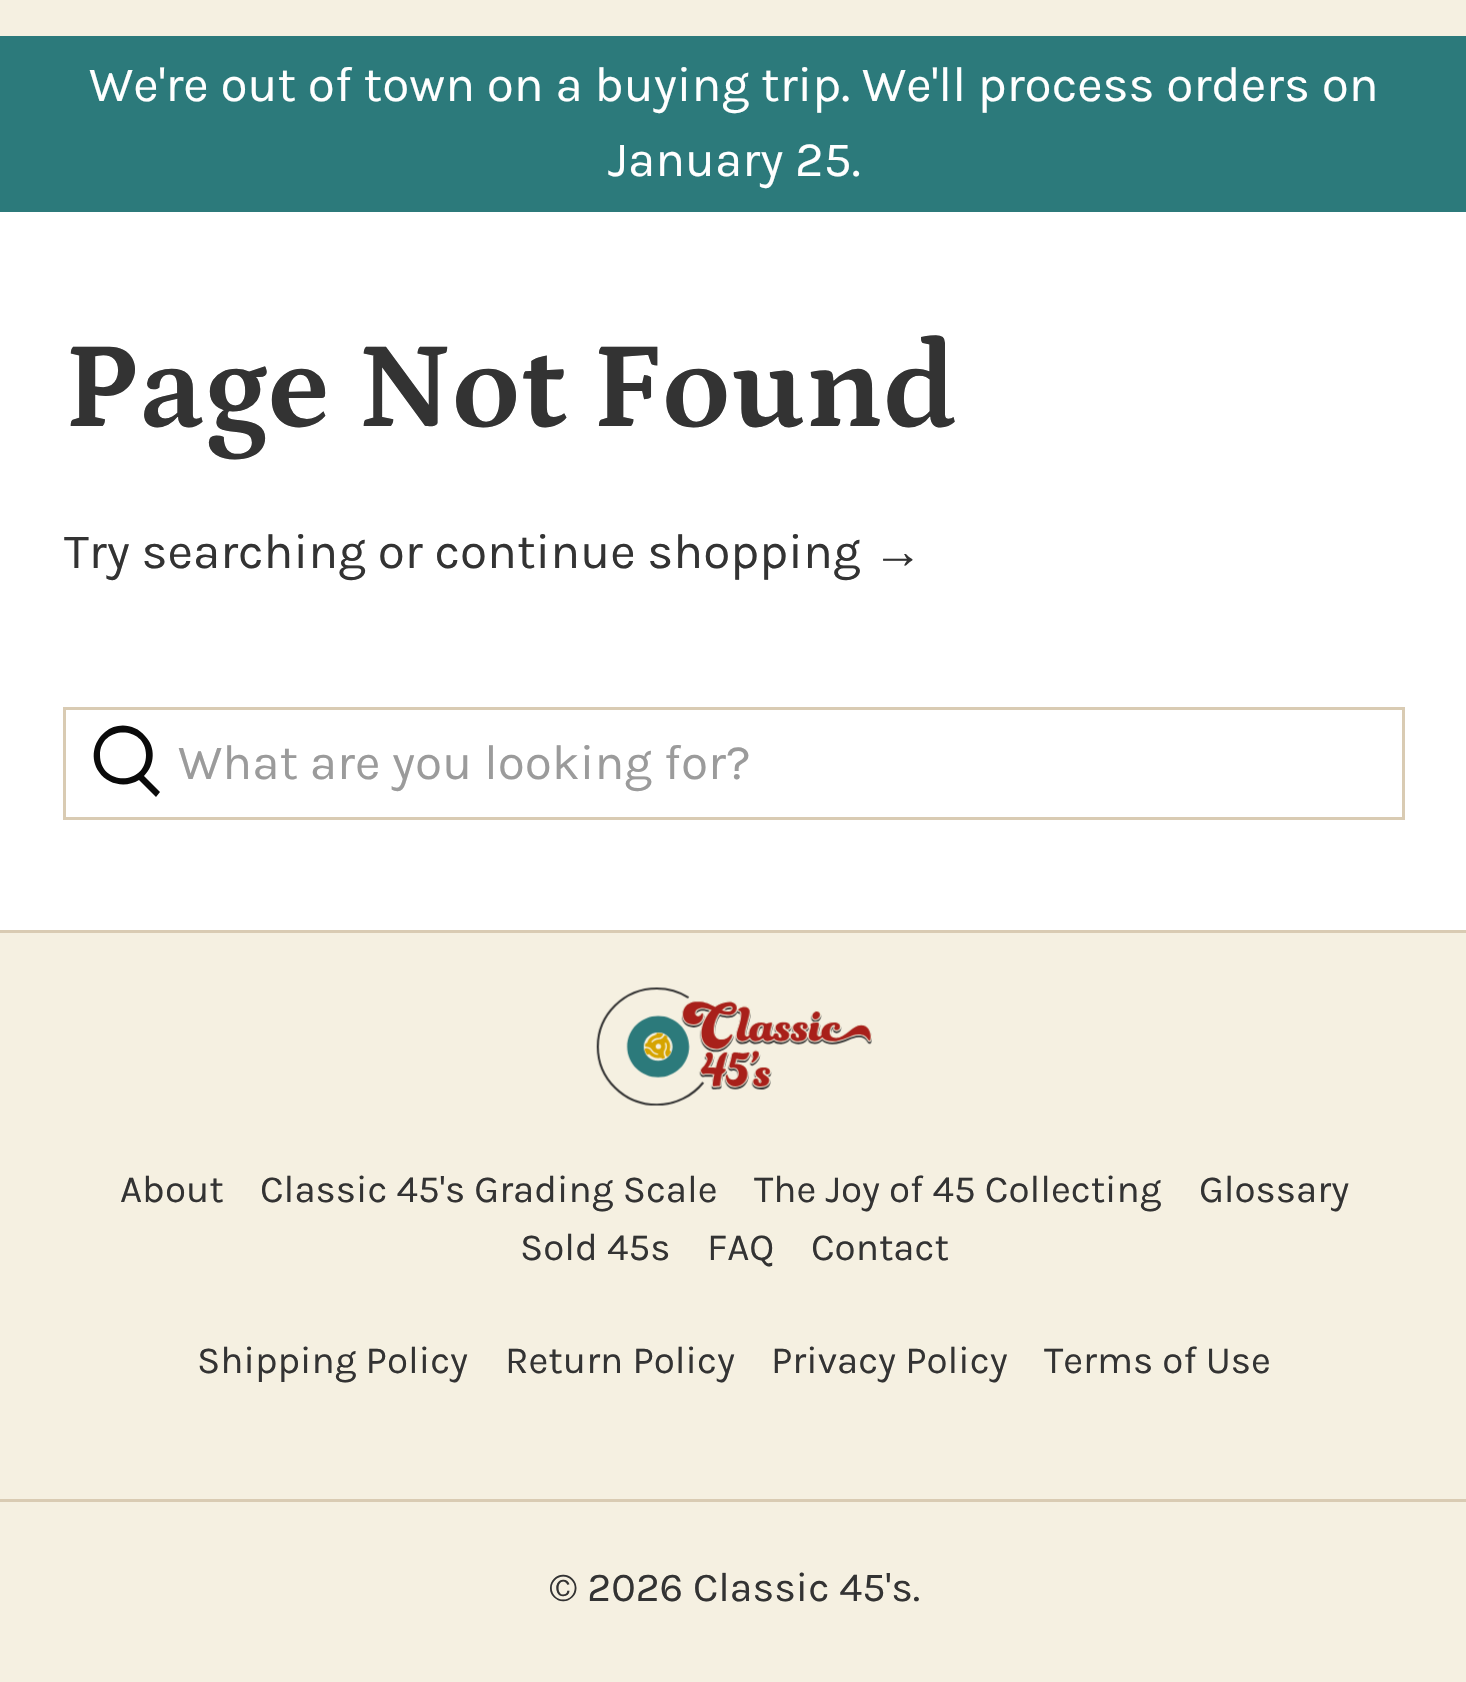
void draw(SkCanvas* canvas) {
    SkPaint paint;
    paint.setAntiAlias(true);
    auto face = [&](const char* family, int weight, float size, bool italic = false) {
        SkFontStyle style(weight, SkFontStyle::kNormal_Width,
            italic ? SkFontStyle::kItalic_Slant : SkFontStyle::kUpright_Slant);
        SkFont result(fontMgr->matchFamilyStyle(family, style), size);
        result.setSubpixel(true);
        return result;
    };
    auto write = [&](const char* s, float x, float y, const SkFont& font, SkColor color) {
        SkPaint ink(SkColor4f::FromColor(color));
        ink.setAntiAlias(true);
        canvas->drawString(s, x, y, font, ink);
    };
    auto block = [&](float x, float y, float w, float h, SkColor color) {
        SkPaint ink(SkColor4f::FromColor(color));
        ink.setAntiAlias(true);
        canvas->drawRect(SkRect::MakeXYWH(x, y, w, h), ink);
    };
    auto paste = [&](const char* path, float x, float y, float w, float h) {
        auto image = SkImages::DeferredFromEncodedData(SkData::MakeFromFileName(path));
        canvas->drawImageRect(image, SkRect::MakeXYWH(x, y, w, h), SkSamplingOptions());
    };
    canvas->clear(SK_ColorWHITE);
    block(0, 0, 1466, 36, SkColorSetRGB(245, 240, 225));
    block(0, 36, 1466, 176, SkColorSetRGB(44, 122, 123));
    auto kFont1 = face("Karla", 400, 49.5f);
    write("We're out of town on a buying trip. We'll process orders on", 89, 101, kFont1, SK_ColorWHITE);
    write("January 25.", 608, 176, kFont1, SK_ColorWHITE);
    auto kFont2 = face("Petrona", 700, 123.75f);
    write("Page Not Found", 64, 426, kFont2, SkColorSetRGB(51, 51, 51));
    write("Try searching or continue shopping", 64, 568, kFont1, SkColorSetRGB(51, 51, 51));
    auto kFont3 = face("Liberation Sans", 400, 49.5f);
    write("→", 873, 568, kFont3, SkColorSetRGB(51, 51, 51));
    paint.setStyle(SkPaint::kStroke_Style);
    paint.setStrokeWidth(3);
    paint.setColor(SkColorSetRGB(217, 203, 179));
    canvas->drawRect(SkRect::MakeXYWH(64.5f, 708.5f, 1339, 110), paint);
    paint.setStyle(SkPaint::kFill_Style);
    paint.setColor(SkColorSetRGB(10, 10, 10));
    canvas->drawPath(SkPathBuilder().moveTo(160, 792).lineTo(144, 776).cubicTo(155, 765, 156, 747, 145, 736).cubicTo(135, 724, 117, 722, 105, 732).cubicTo(93, 742, 90, 759, 99, 772).cubicTo(108, 785, 126, 788, 139, 780).lineTo(156, 797).close().moveTo(100, 755).cubicTo(100, 725, 146, 725, 146, 755).cubicTo(146, 786, 100, 786, 100, 755).close().detach(), paint);
    write("What are you looking for?", 178, 779, kFont1, SkColorSetRGB(155, 155, 155));
    block(0, 933, 1466, 749, SkColorSetRGB(245, 240, 225));
    block(0, 930, 1466, 3, SkColorSetRGB(217, 203, 179));
    block(0, 1499, 1466, 3, SkColorSetRGB(217, 203, 179));
    paste("pic1.png", 596, 987, 276, 119);
    auto kFont4 = face("Karla", 400, 38.5f);
    write("About", 120, 1202, kFont4, SkColorSetRGB(51, 51, 51));
    write("Classic 45's Grading Scale", 260, 1202, kFont4, SkColorSetRGB(51, 51, 51));
    write("The Joy of 45 Collecting", 754, 1202, kFont4, SkColorSetRGB(51, 51, 51));
    write("Glossary", 1199, 1202, kFont4, SkColorSetRGB(51, 51, 51));
    write("Sold 45s", 520, 1260, kFont4, SkColorSetRGB(51, 51, 51));
    write("FAQ", 707, 1260, kFont4, SkColorSetRGB(51, 51, 51));
    write("Contact", 811, 1260, kFont4, SkColorSetRGB(51, 51, 51));
    write("Shipping Policy", 197, 1373, kFont4, SkColorSetRGB(51, 51, 51));
    write("Return Policy", 505, 1373, kFont4, SkColorSetRGB(51, 51, 51));
    write("Privacy Policy", 771, 1373, kFont4, SkColorSetRGB(51, 51, 51));
    write("Terms of Use", 1044, 1373, kFont4, SkColorSetRGB(51, 51, 51));
    auto kFont5 = face("Karla", 400, 41.25f);
    write("© 2026 Classic 45's.", 549, 1601, kFont5, SkColorSetRGB(51, 51, 51));
}
